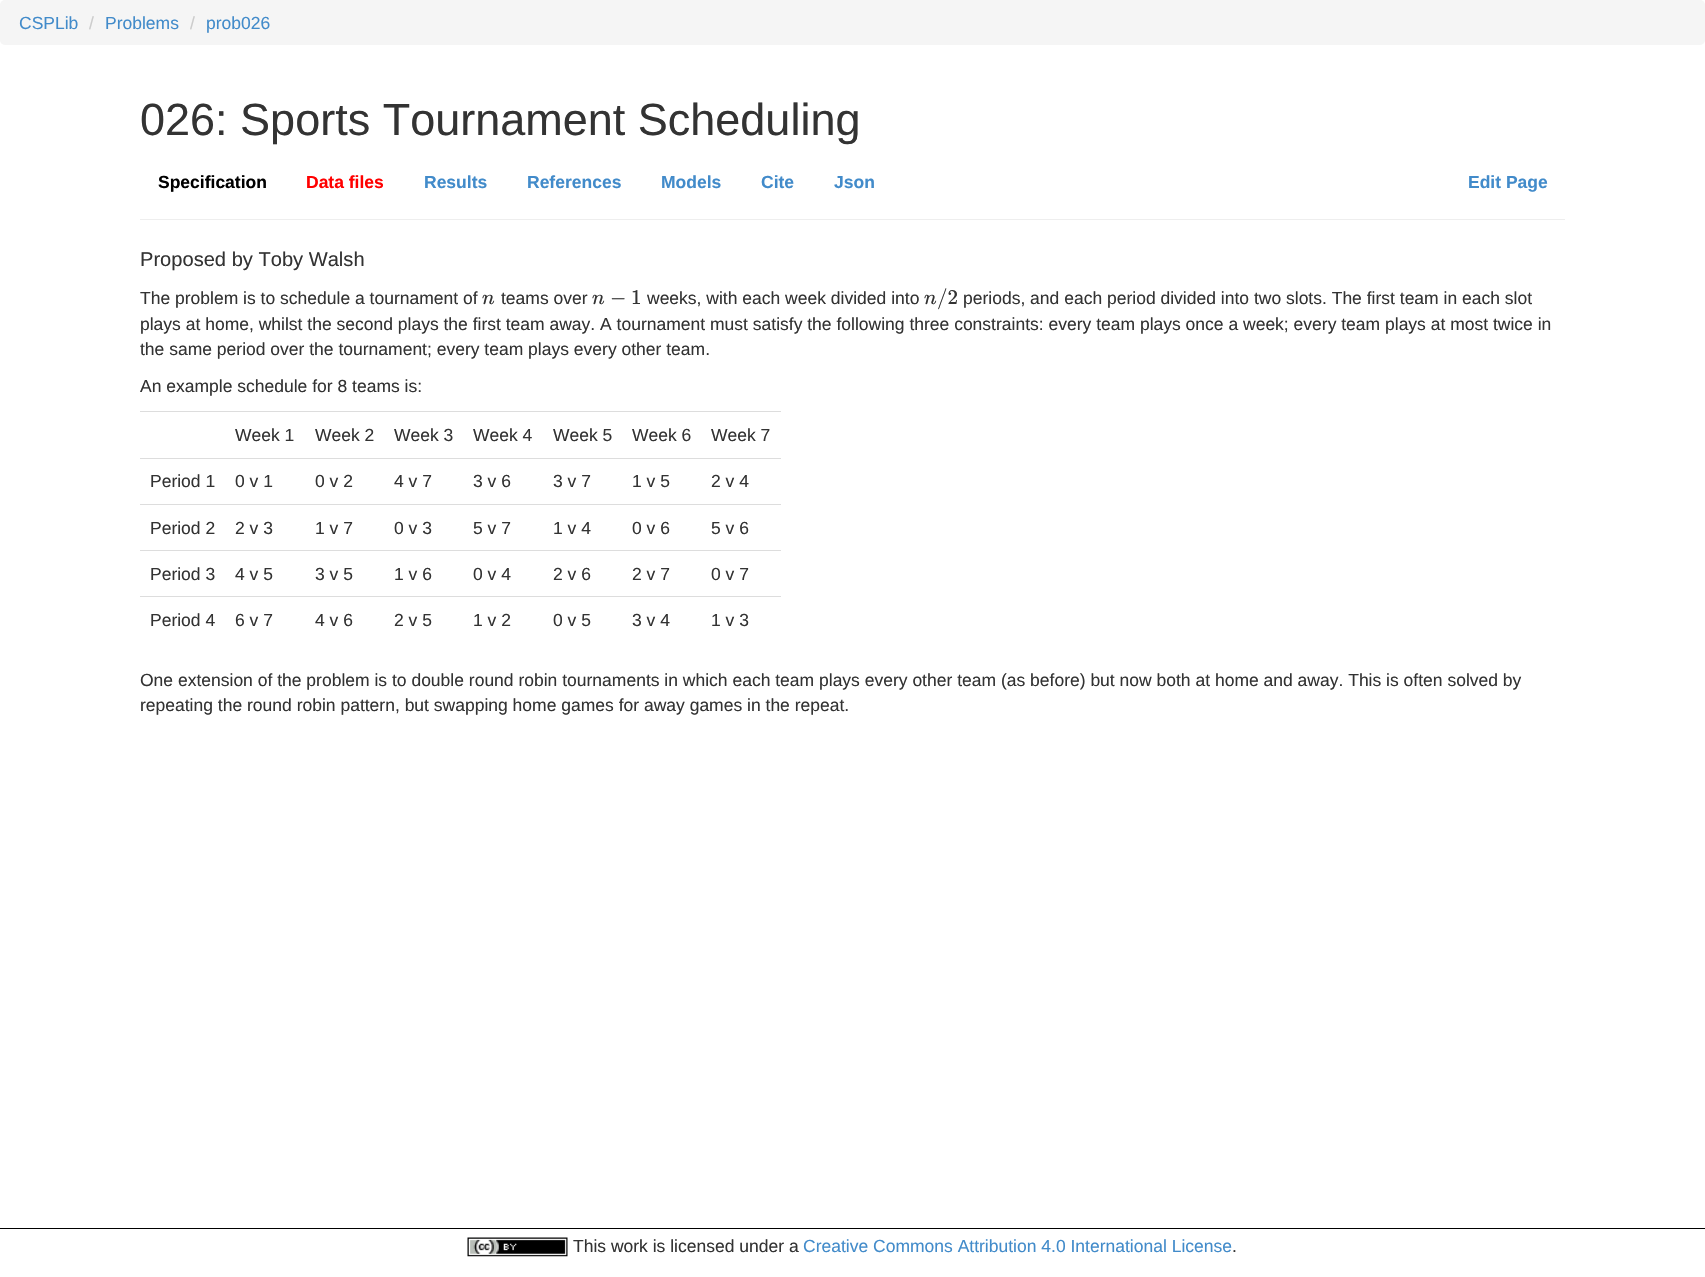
void draw(SkCanvas* canvas) {
    SkPaint paint;
    paint.setAntiAlias(true);
    auto face = [&](const char* family, int weight, float size, bool italic = false) {
        SkFontStyle style(weight, SkFontStyle::kNormal_Width,
            italic ? SkFontStyle::kItalic_Slant : SkFontStyle::kUpright_Slant);
        SkFont result(fontMgr->matchFamilyStyle(family, style), size);
        result.setSubpixel(true);
        return result;
    };
    auto write = [&](const char* s, float x, float y, const SkFont& font, SkColor color) {
        SkPaint ink(SkColor4f::FromColor(color));
        ink.setAntiAlias(true);
        canvas->drawString(s, x, y, font, ink);
    };
    auto block = [&](float x, float y, float w, float h, SkColor color) {
        SkPaint ink(SkColor4f::FromColor(color));
        ink.setAntiAlias(true);
        canvas->drawRect(SkRect::MakeXYWH(x, y, w, h), ink);
    };
    auto card = [&](float x, float y, float w, float h, float radius, SkColor color) {
        SkPaint ink(SkColor4f::FromColor(color));
        ink.setAntiAlias(true);
        canvas->drawRoundRect(SkRect::MakeXYWH(x, y, w, h), radius, radius, ink);
    };
    auto paste = [&](const char* path, float x, float y, float w, float h) {
        auto image = SkImages::DeferredFromEncodedData(SkData::MakeFromFileName(path));
        canvas->drawImageRect(image, SkRect::MakeXYWH(x, y, w, h), SkSamplingOptions());
    };
    canvas->clear(SK_ColorWHITE);
    card(0, 0, 1705, 45, 5, SkColorSetRGB(245, 245, 245));
    auto kFont1 = face("Liberation Sans", 400, 17.5f);
    write("CSPLib", 19, 29, kFont1, SkColorSetRGB(66, 139, 202));
    write("/", 89, 29, kFont1, SkColorSetRGB(204, 204, 204));
    write("Problems", 105, 29, kFont1, SkColorSetRGB(66, 139, 202));
    write("/", 190, 29, kFont1, SkColorSetRGB(204, 204, 204));
    write("prob026", 206, 29, kFont1, SkColorSetRGB(66, 139, 202));
    block(140, 219, 1425, 1, SkColorSetRGB(238, 238, 238));
    auto kFont2 = face("Liberation Sans", 400, 45);
    write("026: Sports Tournament Scheduling", 140, 135, kFont2, SkColorSetRGB(51, 51, 51));
    auto kFont3 = face("Liberation Sans", 700, 17.5f);
    write("Specification", 158, 188, kFont3, SK_ColorBLACK);
    write("Data files", 306, 188, kFont3, SkColorSetRGB(255, 0, 0));
    write("Results", 424, 188, kFont3, SkColorSetRGB(66, 139, 202));
    write("References", 527, 188, kFont3, SkColorSetRGB(66, 139, 202));
    write("Models", 661, 188, kFont3, SkColorSetRGB(66, 139, 202));
    write("Cite", 761, 188, kFont3, SkColorSetRGB(66, 139, 202));
    write("Json", 834, 188, kFont3, SkColorSetRGB(66, 139, 202));
    write("Edit Page", 1468, 188, kFont3, SkColorSetRGB(66, 139, 202));
    auto kFont4 = face("Liberation Sans", 400, 20.1f);
    write("Proposed by Toby Walsh", 140, 266, kFont4, SkColorSetRGB(51, 51, 51));
    write("The problem is to schedule a tournament of", 140, 304, kFont1, SkColorSetRGB(51, 51, 51));
    auto kFont5 = face("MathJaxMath", 400, 21, true);
    write("n", 482, 304, kFont5, SkColorSetRGB(51, 51, 51));
    write("teams over", 501, 304, kFont1, SkColorSetRGB(51, 51, 51));
    write("n", 592, 304, kFont5, SkColorSetRGB(51, 51, 51));
    auto kFont6 = face("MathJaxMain", 400, 21);
    write("−", 610, 304, kFont6, SkColorSetRGB(51, 51, 51));
    write("1", 631, 304, kFont6, SkColorSetRGB(51, 51, 51));
    write("weeks, with each week divided into", 647, 304, kFont1, SkColorSetRGB(51, 51, 51));
    write("n", 924, 304, kFont5, SkColorSetRGB(51, 51, 51));
    write("/2", 937, 304, kFont6, SkColorSetRGB(51, 51, 51));
    write("periods, and each period divided into two slots. The first team in each slot", 963, 304, kFont1, SkColorSetRGB(51, 51, 51));
    write("plays at home, whilst the second plays the first team away. A tournament must satisfy the following three constraints: every team plays once a week; every team plays at most twice in", 140, 330, kFont1, SkColorSetRGB(51, 51, 51));
    write("the same period over the tournament; every team plays every other team.", 140, 355, kFont1, SkColorSetRGB(51, 51, 51));
    write("An example schedule for 8 teams is:", 140, 392, kFont1, SkColorSetRGB(51, 51, 51));
    write("Week 1", 235, 441, kFont1, SkColorSetRGB(51, 51, 51));
    write("Week 2", 315, 441, kFont1, SkColorSetRGB(51, 51, 51));
    write("Week 3", 394, 441, kFont1, SkColorSetRGB(51, 51, 51));
    write("Week 4", 473, 441, kFont1, SkColorSetRGB(51, 51, 51));
    write("Week 5", 553, 441, kFont1, SkColorSetRGB(51, 51, 51));
    write("Week 6", 632, 441, kFont1, SkColorSetRGB(51, 51, 51));
    block(140, 411, 641, 1, SkColorSetRGB(221, 221, 221));
    write("Week 7", 711, 441, kFont1, SkColorSetRGB(51, 51, 51));
    write("Period 1", 150, 487, kFont1, SkColorSetRGB(51, 51, 51));
    write("0 v 1", 235, 487, kFont1, SkColorSetRGB(51, 51, 51));
    write("0 v 2", 315, 487, kFont1, SkColorSetRGB(51, 51, 51));
    write("4 v 7", 394, 487, kFont1, SkColorSetRGB(51, 51, 51));
    write("3 v 6", 473, 487, kFont1, SkColorSetRGB(51, 51, 51));
    write("3 v 7", 553, 487, kFont1, SkColorSetRGB(51, 51, 51));
    write("1 v 5", 632, 487, kFont1, SkColorSetRGB(51, 51, 51));
    block(140, 458, 641, 1, SkColorSetRGB(221, 221, 221));
    write("2 v 4", 711, 487, kFont1, SkColorSetRGB(51, 51, 51));
    write("Period 2", 150, 534, kFont1, SkColorSetRGB(51, 51, 51));
    write("2 v 3", 235, 534, kFont1, SkColorSetRGB(51, 51, 51));
    write("1 v 7", 315, 534, kFont1, SkColorSetRGB(51, 51, 51));
    write("0 v 3", 394, 534, kFont1, SkColorSetRGB(51, 51, 51));
    write("5 v 7", 473, 534, kFont1, SkColorSetRGB(51, 51, 51));
    write("1 v 4", 553, 534, kFont1, SkColorSetRGB(51, 51, 51));
    write("0 v 6", 632, 534, kFont1, SkColorSetRGB(51, 51, 51));
    block(140, 504, 641, 1, SkColorSetRGB(221, 221, 221));
    write("5 v 6", 711, 534, kFont1, SkColorSetRGB(51, 51, 51));
    write("Period 3", 150, 580, kFont1, SkColorSetRGB(51, 51, 51));
    write("4 v 5", 235, 580, kFont1, SkColorSetRGB(51, 51, 51));
    write("3 v 5", 315, 580, kFont1, SkColorSetRGB(51, 51, 51));
    write("1 v 6", 394, 580, kFont1, SkColorSetRGB(51, 51, 51));
    write("0 v 4", 473, 580, kFont1, SkColorSetRGB(51, 51, 51));
    write("2 v 6", 553, 580, kFont1, SkColorSetRGB(51, 51, 51));
    write("2 v 7", 632, 580, kFont1, SkColorSetRGB(51, 51, 51));
    block(140, 550, 641, 1, SkColorSetRGB(221, 221, 221));
    write("0 v 7", 711, 580, kFont1, SkColorSetRGB(51, 51, 51));
    write("Period 4", 150, 626, kFont1, SkColorSetRGB(51, 51, 51));
    write("6 v 7", 235, 626, kFont1, SkColorSetRGB(51, 51, 51));
    write("4 v 6", 315, 626, kFont1, SkColorSetRGB(51, 51, 51));
    write("2 v 5", 394, 626, kFont1, SkColorSetRGB(51, 51, 51));
    write("1 v 2", 473, 626, kFont1, SkColorSetRGB(51, 51, 51));
    write("0 v 5", 553, 626, kFont1, SkColorSetRGB(51, 51, 51));
    write("3 v 4", 632, 626, kFont1, SkColorSetRGB(51, 51, 51));
    block(140, 596, 641, 1, SkColorSetRGB(221, 221, 221));
    write("1 v 3", 711, 626, kFont1, SkColorSetRGB(51, 51, 51));
    write("One extension of the problem is to double round robin tournaments in which each team plays every other team (as before) but now both at home and away. This is often solved by", 140, 686, kFont1, SkColorSetRGB(51, 51, 51));
    write("repeating the round robin pattern, but swapping home games for away games in the repeat.", 140, 711, kFont1, SkColorSetRGB(51, 51, 51));
    block(0, 1228, 1705, 1, SK_ColorBLACK);
    paste("pic1.png", 467, 1237, 101, 20);
    write("This work is licensed under a", 573, 1252, kFont1, SkColorSetRGB(51, 51, 51));
    write("Creative Commons Attribution 4.0 International License", 803, 1252, kFont1, SkColorSetRGB(66, 139, 202));
    write(".", 1232, 1252, kFont1, SkColorSetRGB(51, 51, 51));
}
